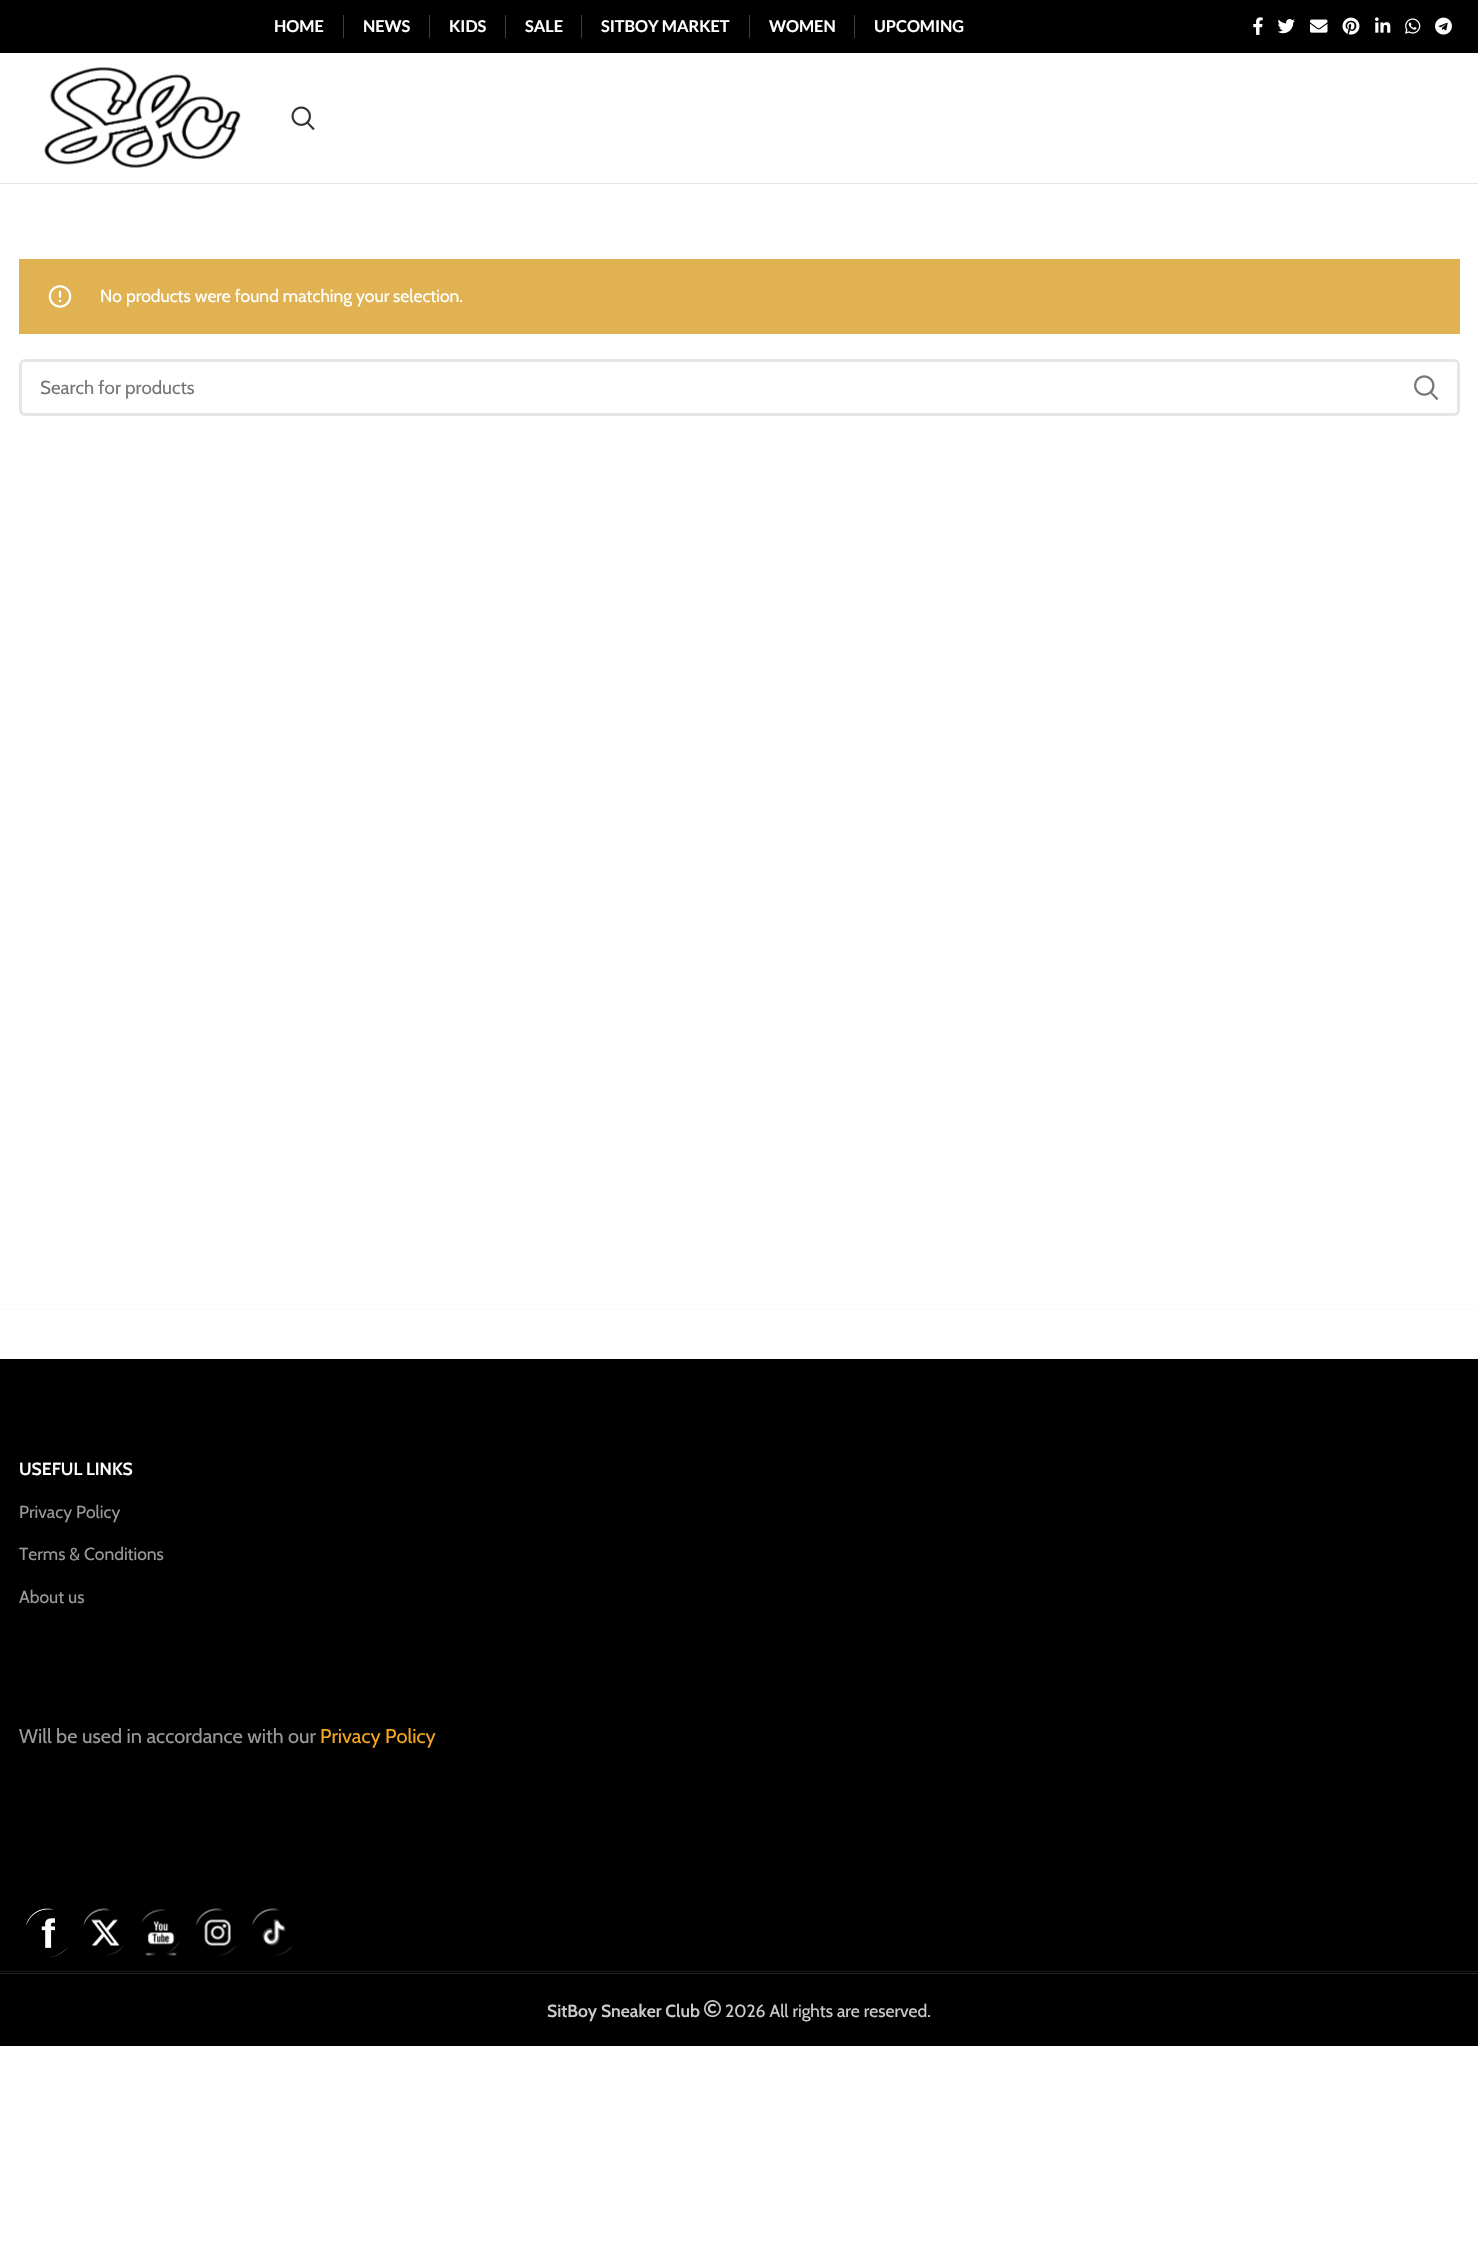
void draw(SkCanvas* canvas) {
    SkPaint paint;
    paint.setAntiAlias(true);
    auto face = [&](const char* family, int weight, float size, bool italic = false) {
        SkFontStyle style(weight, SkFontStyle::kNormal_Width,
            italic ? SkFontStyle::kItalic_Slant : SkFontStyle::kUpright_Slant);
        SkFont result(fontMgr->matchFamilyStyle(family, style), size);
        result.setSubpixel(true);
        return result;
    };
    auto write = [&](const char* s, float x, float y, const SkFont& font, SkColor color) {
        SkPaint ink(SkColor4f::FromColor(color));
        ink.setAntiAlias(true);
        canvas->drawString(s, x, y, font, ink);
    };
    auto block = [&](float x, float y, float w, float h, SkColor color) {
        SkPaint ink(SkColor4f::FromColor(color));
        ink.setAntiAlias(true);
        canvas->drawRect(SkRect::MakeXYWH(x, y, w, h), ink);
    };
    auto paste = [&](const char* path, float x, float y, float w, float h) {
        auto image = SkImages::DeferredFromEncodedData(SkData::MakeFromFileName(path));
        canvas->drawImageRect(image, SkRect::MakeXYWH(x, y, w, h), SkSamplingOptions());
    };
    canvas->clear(SK_ColorWHITE);
    block(0, 0, 1478, 53, SK_ColorBLACK);
    auto kFont1 = face("Lato", 700, 16.25f);
    write("HOME", 274, 32, kFont1, SK_ColorWHITE);
    block(343, 15, 1, 23, SkColorSetRGB(64, 64, 64));
    write("NEWS", 363, 32, kFont1, SK_ColorWHITE);
    block(429, 15, 1, 23, SkColorSetRGB(64, 64, 64));
    write("KIDS", 449, 32, kFont1, SK_ColorWHITE);
    block(505, 15, 1, 23, SkColorSetRGB(64, 64, 64));
    write("SALE", 525, 32, kFont1, SK_ColorWHITE);
    block(581, 15, 1, 23, SkColorSetRGB(64, 64, 64));
    write("SITBOY MARKET", 601, 32, kFont1, SK_ColorWHITE);
    block(749, 15, 1, 23, SkColorSetRGB(64, 64, 64));
    write("WOMEN", 769, 32, kFont1, SK_ColorWHITE);
    block(854, 15, 1, 23, SkColorSetRGB(64, 64, 64));
    write("UPCOMING", 874, 32, kFont1, SK_ColorWHITE);
    paste("pic1.png", 1253, 17, 10, 18);
    paste("pic2.png", 1277, 19, 18, 15);
    paste("pic3.png", 1310, 19, 18, 14);
    paste("pic4.png", 1342, 17, 18, 18);
    paste("pic5.png", 1375, 17, 16, 16);
    paste("pic6.png", 1405, 18, 16, 16);
    paste("pic7.png", 1435, 17, 17, 18);
    block(0, 183, 1478, 1, SkColorSetRGB(230, 230, 230));
    paste("pic8.png", 44, 67, 197, 101);
    paste("pic9.png", 291, 106, 24, 25);
    block(19, 259, 1441, 75, SkColorSetRGB(224, 178, 82));
    paste("pic10.png", 48, 285, 24, 23);
    auto kFont2 = face("Cabin", 400, 17.5f);
    write("No products were found matching your selection.", 100, 302, kFont2, SK_ColorWHITE);
    paint.setStyle(SkPaint::kStroke_Style);
    paint.setStrokeWidth(3);
    paint.setColor(SkColorSetRGB(230, 230, 230));
    canvas->drawRoundRect(SkRect::MakeXYWH(20.5f, 360.5f, 1438, 54), 4.5f, 4.5f, paint);
    auto kFont3 = face("Cabin", 400, 18.75f);
    write("Search for products", 40, 394, kFont3, SkColorSetRGB(119, 119, 119));
    paste("pic11.png", 1414, 375, 25, 26);
    block(0, 1309, 1478, 1, SkColorSetRGB(249, 249, 249));
    block(0, 1359, 1478, 687, SK_ColorBLACK);
    block(0, 1971, 1478, 1, SkColorSetRGB(26, 26, 26));
    auto kFont4 = face("Cabin", 600, 17.5f);
    write("USEFUL LINKS", 19, 1475, kFont4, SK_ColorWHITE);
    write("Privacy Policy", 19, 1518, kFont2, SkColorSetRGB(153, 153, 153));
    write("Terms & Conditions", 19, 1560, kFont2, SkColorSetRGB(153, 153, 153));
    write("About us", 19, 1603, kFont2, SkColorSetRGB(153, 153, 153));
    auto kFont5 = face("Cabin", 400, 20);
    write("Will be used in accordance with our", 19, 1743, kFont5, SkColorSetRGB(153, 153, 153));
    write("Privacy Policy", 320, 1743, kFont5, SkColorSetRGB(244, 165, 28));
    paste("pic12.png", 26, 1908, 42, 49);
    paste("pic13.png", 83, 1908, 41, 48);
    paste("pic14.png", 141, 1909, 39, 47);
    paste("pic15.png", 195, 1908, 42, 48);
    paste("pic16.png", 251, 1908, 42, 48);
    block(0, 1973, 1478, 1, SkColorSetRGB(38, 38, 38));
    write("SitBoy Sneaker Club", 547, 2017, kFont4, SkColorSetRGB(204, 204, 204));
    paste("pic17.png", 704, 2000, 17, 18);
    write("2026 All rights are reserved.", 725, 2017, kFont2, SkColorSetRGB(204, 204, 204));
}
